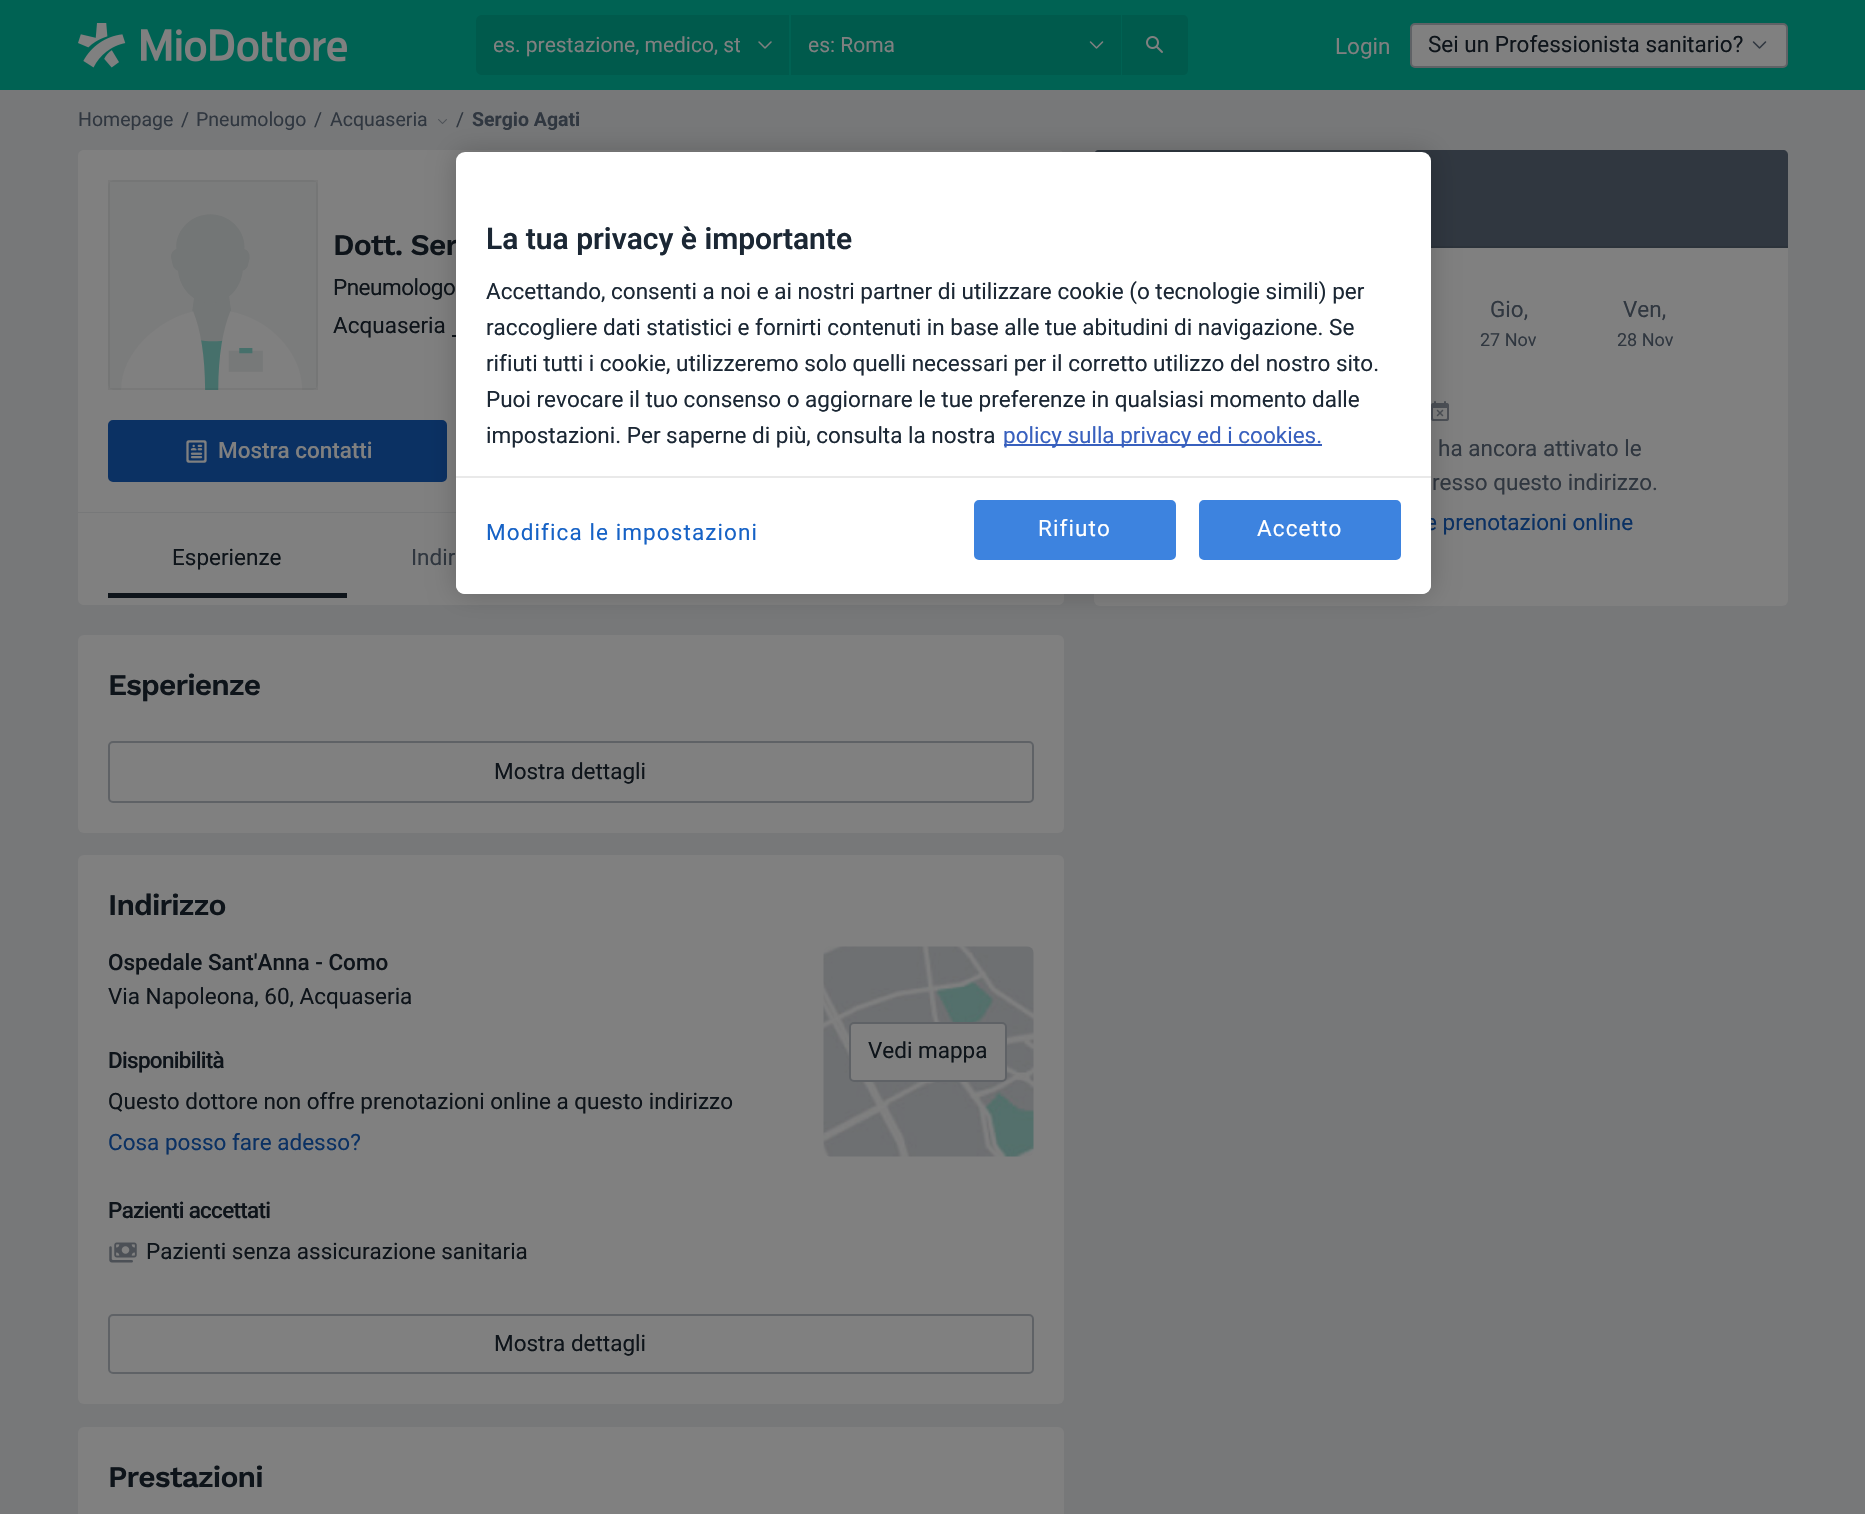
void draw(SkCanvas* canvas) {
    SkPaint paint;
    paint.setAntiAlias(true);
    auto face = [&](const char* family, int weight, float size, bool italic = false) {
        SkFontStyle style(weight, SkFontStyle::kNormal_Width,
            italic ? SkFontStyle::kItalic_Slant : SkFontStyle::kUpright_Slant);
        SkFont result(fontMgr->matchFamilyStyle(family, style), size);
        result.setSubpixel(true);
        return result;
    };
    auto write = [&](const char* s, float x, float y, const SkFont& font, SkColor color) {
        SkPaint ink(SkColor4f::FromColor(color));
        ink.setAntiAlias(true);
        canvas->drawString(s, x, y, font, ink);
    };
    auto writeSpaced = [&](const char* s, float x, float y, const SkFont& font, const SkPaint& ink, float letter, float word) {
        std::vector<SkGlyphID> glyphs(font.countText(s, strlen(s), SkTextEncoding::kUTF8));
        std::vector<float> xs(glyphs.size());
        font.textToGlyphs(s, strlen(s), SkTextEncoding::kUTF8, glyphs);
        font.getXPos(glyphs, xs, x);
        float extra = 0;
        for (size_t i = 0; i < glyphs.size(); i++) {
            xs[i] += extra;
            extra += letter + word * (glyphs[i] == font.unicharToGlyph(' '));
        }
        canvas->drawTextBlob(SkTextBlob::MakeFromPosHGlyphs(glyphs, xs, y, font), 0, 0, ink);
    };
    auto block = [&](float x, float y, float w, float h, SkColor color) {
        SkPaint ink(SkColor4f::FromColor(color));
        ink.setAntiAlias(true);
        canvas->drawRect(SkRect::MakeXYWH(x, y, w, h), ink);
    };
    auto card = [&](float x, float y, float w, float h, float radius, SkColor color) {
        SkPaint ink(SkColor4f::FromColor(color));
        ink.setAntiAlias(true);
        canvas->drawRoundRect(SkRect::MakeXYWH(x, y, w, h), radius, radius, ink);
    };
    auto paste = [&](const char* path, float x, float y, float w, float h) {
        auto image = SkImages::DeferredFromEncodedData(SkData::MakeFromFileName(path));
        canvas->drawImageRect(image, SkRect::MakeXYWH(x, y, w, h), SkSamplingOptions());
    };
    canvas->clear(SkColorSetRGB(119, 120, 121));
    block(0, 0, 1865, 90, SkColorSetRGB(0, 98, 83));
    paste("pic1.png", 78, 23, 269, 45);
    paint.setColor(SkColorSetRGB(0, 90, 76));
    canvas->drawPath(SkPathBuilder().moveTo(482, 15).lineTo(789, 15).lineTo(789, 75).lineTo(482, 75).cubicTo(478.5f, 75, 476, 72.5f, 476, 69).lineTo(476, 21).cubicTo(476, 17.5f, 478.5f, 15, 482, 15).close().detach(), paint);
    canvas->save();
    canvas->clipRect(SkRect::MakeXYWH(494, 33, 246, 24));
    auto kFont1 = face("Roboto", 400, 21);
    write("es. prestazione, medico, st", 493, 52, kFont1, SkColorSetRGB(128, 128, 128));
    canvas->restore();
    paste("pic2.png", 758, 41, 14, 8);
    block(791, 15, 330, 60, SkColorSetRGB(0, 90, 76));
    write("es: Roma", 808, 52, kFont1, SkColorSetRGB(128, 128, 128));
    paste("pic3.png", 1089, 41, 15, 8);
    canvas->drawPath(SkPathBuilder().moveTo(1122, 15).lineTo(1183, 15).cubicTo(1186, 15, 1188, 17, 1188, 20).lineTo(1188, 70).cubicTo(1188, 73, 1186, 75, 1183, 75).lineTo(1122, 75).close().detach(), paint);
    paste("pic4.png", 1146, 36, 17, 17);
    auto kFont2 = face("Roboto", 400, 22.5f);
    write("Login", 1335, 54, kFont2, SkColorSetRGB(128, 128, 128));
    paint.setColor(SkColorSetRGB(128, 128, 128));
    canvas->drawRoundRect(SkRect::MakeXYWH(1411, 24, 376, 43), 4, 4, paint);
    paint.setStyle(SkPaint::kStroke_Style);
    paint.setStrokeWidth(2);
    paint.setColor(SkColorSetRGB(95, 98, 102));
    canvas->drawRoundRect(SkRect::MakeXYWH(1411, 24, 376, 43), 4, 4, paint);
    write("Sei un Professionista sanitario?", 1428, 52, kFont2, SkColorSetRGB(14, 20, 26));
    paste("pic5.png", 1752, 41, 15, 8);
    auto kFont3 = face("Roboto", 400, 19.5f);
    write("Homepage", 78, 126, kFont3, SkColorSetRGB(48, 55, 64));
    write("/", 181, 126, kFont3, SkColorSetRGB(48, 55, 64));
    write("Pneumologo", 196, 126, kFont3, SkColorSetRGB(48, 55, 64));
    write("/", 314, 126, kFont3, SkColorSetRGB(48, 55, 64));
    write("Acquaseria", 330, 126, kFont3, SkColorSetRGB(48, 55, 64));
    paste("pic6.png", 438, 119, 9, 5);
    write("/", 456, 126, kFont3, SkColorSetRGB(48, 55, 64));
    auto kFont4 = face("Roboto", 700, 19.5f);
    write("Sergio Agati", 472, 126, kFont4, SkColorSetRGB(48, 55, 64));
    paint.setStyle(SkPaint::kFill_Style);
    paint.setColor(SkColorSetRGB(128, 128, 128));
    canvas->drawPath(SkPathBuilder().moveTo(84, 150).lineTo(1058, 150).cubicTo(1061.5f, 150, 1064, 152.5f, 1064, 156).lineTo(1064, 513).lineTo(78, 513).lineTo(78, 156).cubicTo(78, 152.5f, 80.5f, 150, 84, 150).close().detach(), paint);
    block(78, 512, 378, 1, SkColorSetRGB(119, 120, 121));
    paste("pic7.png", 108, 180, 210, 210);
    paint.setStyle(SkPaint::kStroke_Style);
    paint.setColor(SkColorSetARGB(13, 0, 0, 0));
    canvas->drawRect(SkRect::MakeXYWH(109, 181, 208, 208), paint);
    auto kFont5 = face("Work Sans", 600, 30);
    paint.setStyle(SkPaint::kFill_Style);
    paint.setColor(SkColorSetRGB(14, 20, 26));
    writeSpaced("Dott. Ser", 333, 255, kFont5, paint, -0.9f, 0);
    writeSpaced("Pneumologo", 333, 295, kFont2, paint, -0.5f, 0);
    write("Acquaseria", 333, 333, kFont2, SkColorSetRGB(14, 20, 26));
    block(452, 335, 4, 2, SkColorSetRGB(14, 20, 26));
    paint.setColor(SkColorSetRGB(11, 49, 99));
    canvas->drawRoundRect(SkRect::MakeXYWH(109, 421, 337, 60), 4, 4, paint);
    paint.setStyle(SkPaint::kStroke_Style);
    canvas->drawRoundRect(SkRect::MakeXYWH(109, 421, 337, 60), 4, 4, paint);
    paste("pic8.png", 186, 440, 21, 23);
    auto kFont6 = face("Roboto", 500, 22.5f);
    write("Mostra contatti", 218, 458, kFont6, SkColorSetRGB(128, 128, 128));
    paint.setStyle(SkPaint::kFill_Style);
    paint.setColor(SkColorSetRGB(128, 128, 128));
    canvas->drawPath(SkPathBuilder().moveTo(78, 513).lineTo(1064, 513).lineTo(1064, 599).cubicTo(1064, 602.5f, 1061.5f, 605, 1058, 605).lineTo(84, 605).cubicTo(80.5f, 605, 78, 602.5f, 78, 599).close().detach(), paint);
    block(108, 593, 239, 5, SkColorSetRGB(14, 20, 26));
    write("Esperienze", 172, 565, kFont2, SkColorSetRGB(14, 20, 26));
    write("Indir", 411, 565, kFont2, SkColorSetRGB(48, 55, 64));
    card(78, 635, 986, 198, 6, SkColorSetRGB(128, 128, 128));
    paint.setColor(SkColorSetRGB(14, 20, 26));
    writeSpaced("Esperienze", 108, 695, kFont5, paint, -0.9f, 0);
    paint.setStyle(SkPaint::kStroke_Style);
    paint.setColor(SkColorSetRGB(95, 98, 102));
    canvas->drawRoundRect(SkRect::MakeXYWH(109, 742, 924, 60), 4, 4, paint);
    write("Mostra dettagli", 494, 779, kFont2, SkColorSetRGB(14, 20, 26));
    card(78, 855, 986, 549, 6, SkColorSetRGB(128, 128, 128));
    paint.setStyle(SkPaint::kFill_Style);
    paint.setColor(SkColorSetRGB(14, 20, 26));
    writeSpaced("Indirizzo", 108, 915, kFont5, paint, -0.9f, 0);
    write("Ospedale Sant'Anna - Como", 108, 970, kFont6, SkColorSetRGB(14, 20, 26));
    write("Via Napoleona, 60, Acquaseria", 108, 1004, kFont2, SkColorSetRGB(14, 20, 26));
    writeSpaced("Disponibilità", 108, 1068, kFont6, paint, -0.7f, 0);
    write("Questo dottore non offre prenotazioni online a questo indirizzo", 108, 1109, kFont2, SkColorSetRGB(14, 20, 26));
    write("Cosa posso fare adesso?", 108, 1150, kFont2, SkColorSetRGB(11, 49, 99));
    writeSpaced("Pazienti accettati", 108, 1218, kFont6, paint, -0.7f, 0);
    paste("pic9.png", 109, 1242, 28, 21);
    write("Pazienti senza assicurazione sanitaria", 146, 1259, kFont2, SkColorSetRGB(14, 20, 26));
    paste("pic10.png", 823, 946, 211, 211);
    paint.setColor(SkColorSetRGB(128, 128, 128));
    canvas->drawRoundRect(SkRect::MakeXYWH(850, 1023, 156, 58), 4, 4, paint);
    paint.setStyle(SkPaint::kStroke_Style);
    paint.setColor(SkColorSetRGB(95, 98, 102));
    canvas->drawRoundRect(SkRect::MakeXYWH(850, 1023, 156, 58), 4, 4, paint);
    write("Vedi mappa", 868, 1058, kFont2, SkColorSetRGB(14, 20, 26));
    canvas->drawRoundRect(SkRect::MakeXYWH(109, 1315, 924, 58), 4, 4, paint);
    write("Mostra dettagli", 494, 1351, kFont2, SkColorSetRGB(14, 20, 26));
    card(78, 1427, 986, 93, 6, SkColorSetRGB(128, 128, 128));
    paint.setStyle(SkPaint::kFill_Style);
    paint.setColor(SkColorSetRGB(14, 20, 26));
    writeSpaced("Prestazioni", 108, 1487, kFont5, paint, -0.9f, 0);
    card(1094, 150, 694, 456, 6, SkColorSetRGB(128, 128, 128));
    paint.setColor(SkColorSetRGB(48, 55, 64));
    canvas->drawPath(SkPathBuilder().moveTo(1099, 150).lineTo(1783, 150).cubicTo(1786, 150, 1788, 152, 1788, 155).lineTo(1788, 248).lineTo(1094, 248).lineTo(1094, 155).cubicTo(1094, 152, 1096, 150, 1099, 150).close().detach(), paint);
    block(1431, 246, 357, 2, SkColorSetRGB(44, 51, 59));
    write("Gio,", 1490, 317, kFont2, SkColorSetRGB(48, 55, 64));
    auto kFont7 = face("Roboto", 400, 18);
    write("27 Nov", 1480, 346, kFont7, SkColorSetRGB(48, 55, 64));
    write("Ven,", 1623, 317, kFont2, SkColorSetRGB(48, 55, 64));
    write("28 Nov", 1617, 346, kFont7, SkColorSetRGB(48, 55, 64));
    paste("pic11.png", 1431, 401, 18, 20);
    write("ha ancora attivato le", 1438, 456, kFont2, SkColorSetRGB(48, 55, 64));
    write("resso questo indirizzo.", 1432, 490, kFont2, SkColorSetRGB(48, 55, 64));
    write("e prenotazioni online", 1425, 530, kFont2, SkColorSetRGB(11, 49, 99));
    paint.setColor(SkColorSetARGB(51, 0, 0, 0));
    paint.setMaskFilter(SkMaskFilter::MakeBlur(kNormal_SkBlurStyle, 13.5f));
    canvas->drawRoundRect(SkRect::MakeXYWH(456, 152, 975, 442), 9, 9, paint);
    paint.setMaskFilter(nullptr);
    card(456, 152, 975, 442, 9, SK_ColorWHITE);
    auto kFont8 = face("Roboto", 600, 30);
    write("La tua privacy è importante", 486, 249, kFont8, SkColorSetRGB(27, 39, 52));
    write("Accettando, consenti a noi e ai nostri partner di utilizzare cookie (o tecnologie simili) per", 486, 299, kFont2, SkColorSetRGB(27, 39, 52));
    write("raccogliere dati statistici e fornirti contenuti in base alle tue abitudini di navigazione. Se", 486, 335, kFont2, SkColorSetRGB(27, 39, 52));
    write("rifiuti tutti i cookie, utilizzeremo solo quelli necessari per il corretto utilizzo del nostro sito.", 486, 371, kFont2, SkColorSetRGB(27, 39, 52));
    write("Puoi revocare il tuo consenso o aggiornare le tue preferenze in qualsiasi momento dalle", 486, 407, kFont2, SkColorSetRGB(27, 39, 52));
    write("impostazioni. Per saperne di più, consulta la nostra", 486, 443, kFont2, SkColorSetRGB(27, 39, 52));
    block(1004, 444, 318, 2, SkColorSetRGB(56, 96, 190));
    write("policy sulla privacy ed i cookies.", 1003, 443, kFont2, SkColorSetRGB(56, 96, 190));
    paint.setColor(SK_ColorWHITE);
    canvas->drawPath(SkPathBuilder().moveTo(456, 476).lineTo(1431, 476).lineTo(1431, 585).cubicTo(1431, 590, 1427, 594, 1422, 594).lineTo(465, 594).cubicTo(460, 594, 456, 590, 456, 585).close().detach(), paint);
    block(456, 476, 975, 2, SkColorSetRGB(233, 233, 233));
    paint.setColor(SkColorSetRGB(22, 98, 198));
    writeSpaced("Modifica le impostazioni", 486, 540, kFont2, paint, 1.1f, 0);
    paint.setColor(SkColorSetRGB(61, 131, 223));
    canvas->drawRoundRect(SkRect::MakeXYWH(975, 501, 200, 58), 4, 4, paint);
    paint.setStyle(SkPaint::kStroke_Style);
    canvas->drawRoundRect(SkRect::MakeXYWH(975, 501, 200, 58), 4, 4, paint);
    paint.setStyle(SkPaint::kFill_Style);
    paint.setColor(SK_ColorWHITE);
    writeSpaced("Rifiuto", 1038, 536, kFont2, paint, 1.1f, 0);
    paint.setColor(SkColorSetRGB(61, 131, 223));
    canvas->drawRoundRect(SkRect::MakeXYWH(1200, 501, 200, 58), 4, 4, paint);
    paint.setStyle(SkPaint::kStroke_Style);
    canvas->drawRoundRect(SkRect::MakeXYWH(1200, 501, 200, 58), 4, 4, paint);
    paint.setStyle(SkPaint::kFill_Style);
    paint.setColor(SK_ColorWHITE);
    writeSpaced("Accetto", 1257, 536, kFont2, paint, 1.1f, 0);
}
